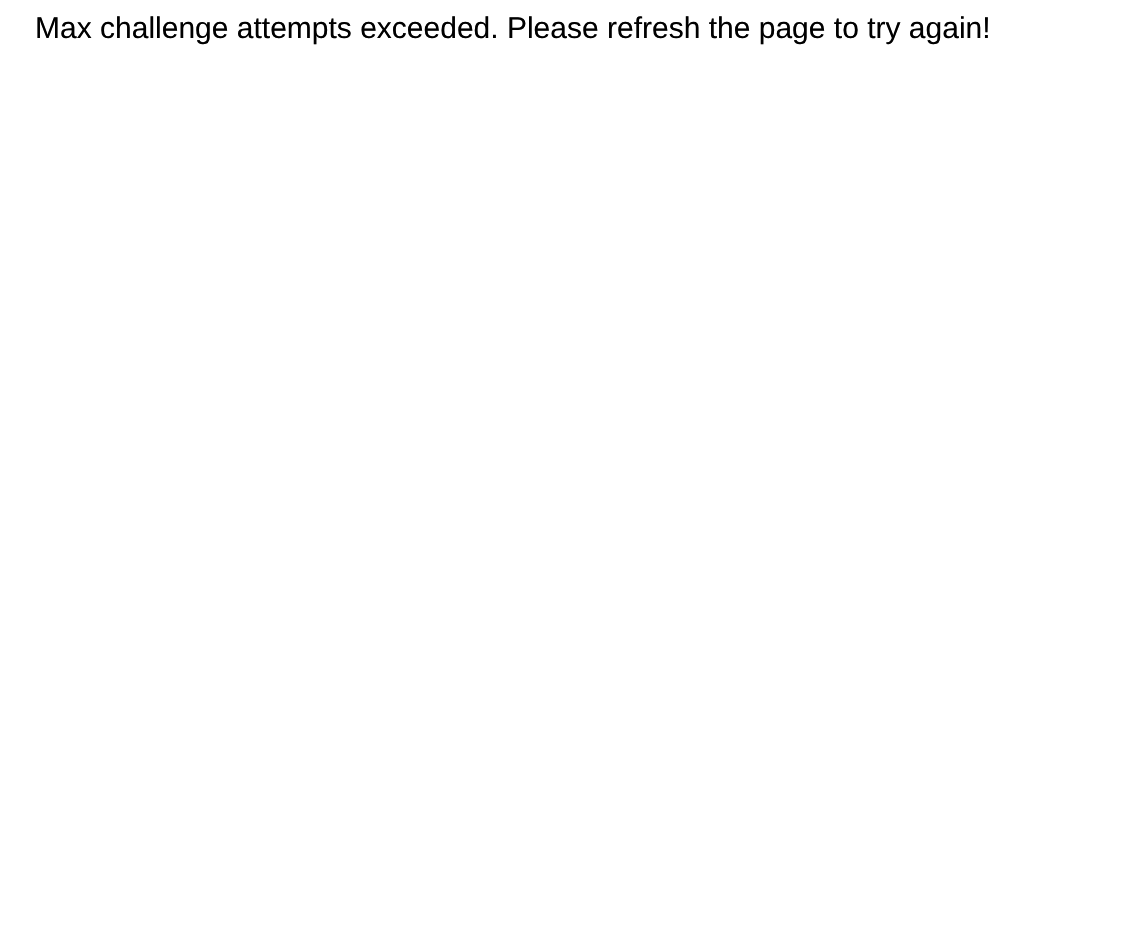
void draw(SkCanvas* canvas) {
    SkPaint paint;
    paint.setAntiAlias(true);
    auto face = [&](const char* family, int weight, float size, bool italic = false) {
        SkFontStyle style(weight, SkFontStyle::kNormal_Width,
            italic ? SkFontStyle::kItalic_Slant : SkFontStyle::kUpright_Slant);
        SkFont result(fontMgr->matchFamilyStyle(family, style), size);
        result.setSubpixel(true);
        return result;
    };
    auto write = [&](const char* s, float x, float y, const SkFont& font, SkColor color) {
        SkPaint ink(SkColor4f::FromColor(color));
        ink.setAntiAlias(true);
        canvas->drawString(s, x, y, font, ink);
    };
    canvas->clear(SK_ColorWHITE);
    auto kFont1 = face("Liberation Sans", 400, 30);
    write("Max challenge attempts exceeded. Please refresh the page to try again!", 35, 38, kFont1, SK_ColorBLACK);
}
